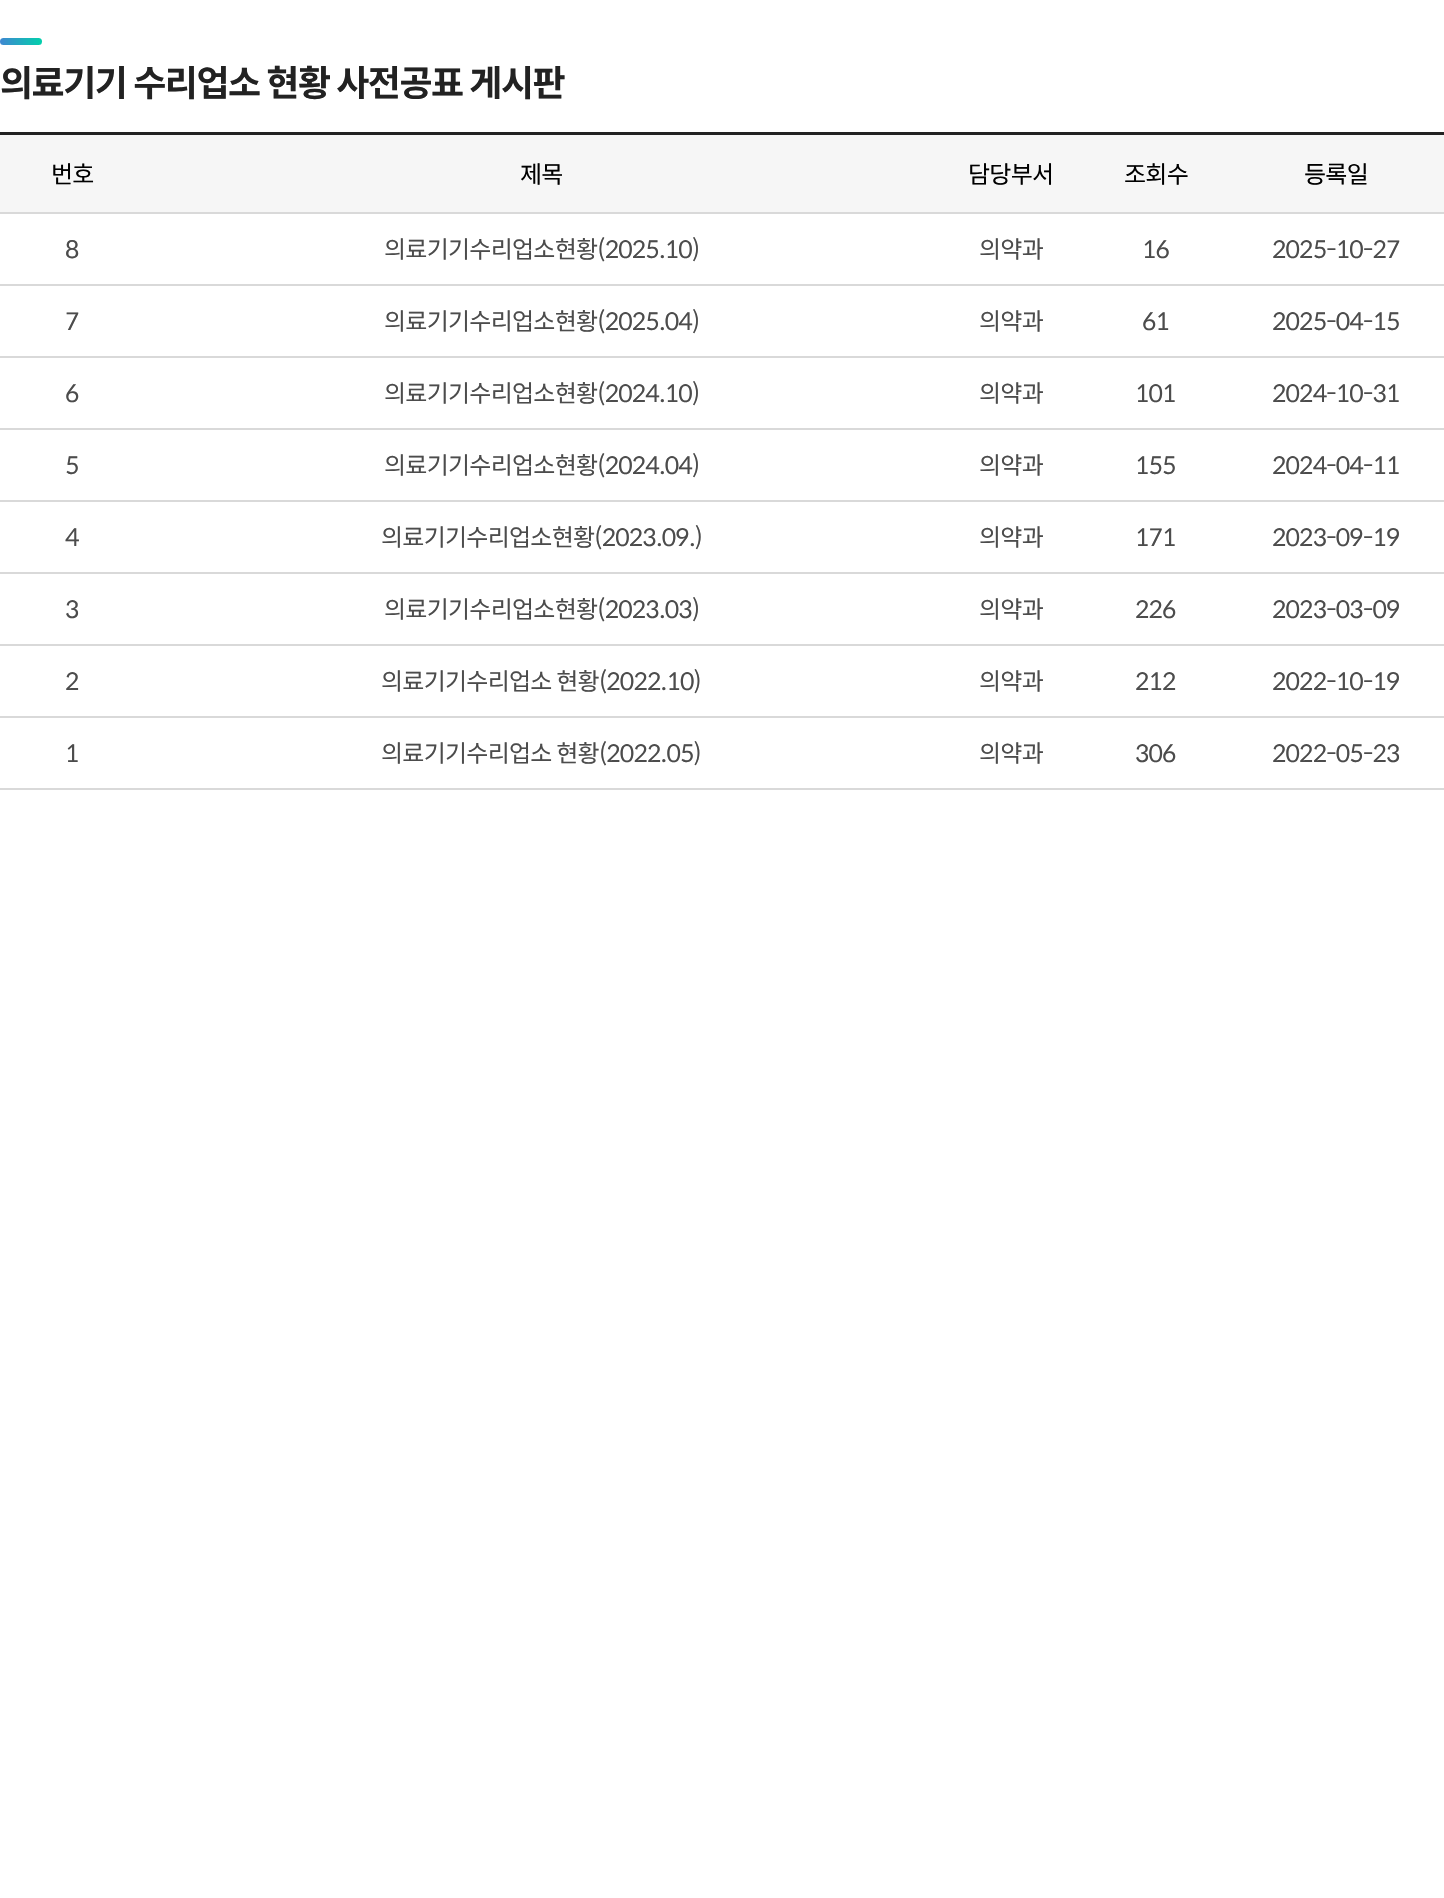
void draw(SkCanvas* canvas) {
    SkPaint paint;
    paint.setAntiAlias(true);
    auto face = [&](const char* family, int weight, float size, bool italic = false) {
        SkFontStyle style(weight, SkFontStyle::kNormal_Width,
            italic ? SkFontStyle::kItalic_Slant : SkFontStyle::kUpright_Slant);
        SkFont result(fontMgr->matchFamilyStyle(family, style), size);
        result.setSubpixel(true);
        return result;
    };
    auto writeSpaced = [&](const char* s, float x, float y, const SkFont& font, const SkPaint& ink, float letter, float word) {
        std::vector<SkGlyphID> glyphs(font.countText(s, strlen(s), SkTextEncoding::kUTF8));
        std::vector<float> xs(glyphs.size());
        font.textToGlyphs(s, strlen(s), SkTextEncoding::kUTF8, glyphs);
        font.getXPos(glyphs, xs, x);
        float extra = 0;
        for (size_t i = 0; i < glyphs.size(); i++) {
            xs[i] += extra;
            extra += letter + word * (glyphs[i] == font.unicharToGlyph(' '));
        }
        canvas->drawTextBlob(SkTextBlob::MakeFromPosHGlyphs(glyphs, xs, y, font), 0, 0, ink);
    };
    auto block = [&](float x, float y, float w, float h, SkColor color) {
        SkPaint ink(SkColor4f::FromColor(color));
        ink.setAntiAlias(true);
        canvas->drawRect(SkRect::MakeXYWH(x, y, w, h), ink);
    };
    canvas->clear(SK_ColorWHITE);
    {
        const SkColor colors[] = {SkColorSetRGB(63, 135, 209), SkColorSetRGB(2, 208, 172)};
        const float stops[] = {0, 1};
        const SkPoint ends[] = {{0, 41}, {42, 41}};
        paint.setShader(SkGradientShader::MakeLinear(ends, colors, stops, 2, SkTileMode::kClamp));
        paint.setAlpha(255);
    }
    canvas->drawRoundRect(SkRect::MakeXYWH(0, 38, 42, 7), 3.5f, 3.5f, paint);
    auto kFont1 = face("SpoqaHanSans", 700, 36);
    paint.setShader(nullptr);
    paint.setColor(SkColorSetRGB(34, 34, 34));
    writeSpaced("의료기기 수리업소 현황 사전공표 게시판", 0, 96, kFont1, paint, -1.5f, 0);
    block(0, 135, 1444, 77, SkColorSetRGB(246, 246, 246));
    auto kFont2 = face("SpoqaHanSans", 400, 24);
    paint.setColor(SK_ColorBLACK);
    writeSpaced("번호", 51, 183, kFont2, paint, -0.75f, 0);
    writeSpaced("제목", 520, 183, kFont2, paint, -0.75f, 0);
    writeSpaced("담당부서", 968, 183, kFont2, paint, -0.75f, 0);
    writeSpaced("조회수", 1124, 183, kFont2, paint, -0.75f, 0);
    block(0, 212, 1444, 2, SkColorSetRGB(217, 217, 217));
    block(0, 132, 1444, 3, SkColorSetRGB(34, 34, 34));
    writeSpaced("등록일", 1304, 183, kFont2, paint, -0.75f, 0);
    paint.setColor(SkColorSetRGB(76, 76, 76));
    writeSpaced("8", 65, 258, kFont2, paint, -0.75f, 0);
    writeSpaced("의료기기수리업소현황(2025.10)", 384, 258, kFont2, paint, -0.75f, 0);
    writeSpaced("의약과", 979, 258, kFont2, paint, -0.75f, 0);
    writeSpaced("16", 1142, 258, kFont2, paint, -0.75f, 0);
    block(0, 284, 1444, 2, SkColorSetRGB(217, 217, 217));
    writeSpaced("2025-10-27", 1272, 258, kFont2, paint, -0.75f, 0);
    writeSpaced("7", 65, 330, kFont2, paint, -0.75f, 0);
    writeSpaced("의료기기수리업소현황(2025.04)", 384, 330, kFont2, paint, -0.75f, 0);
    writeSpaced("의약과", 979, 330, kFont2, paint, -0.75f, 0);
    writeSpaced("61", 1142, 330, kFont2, paint, -0.75f, 0);
    block(0, 356, 1444, 2, SkColorSetRGB(217, 217, 217));
    writeSpaced("2025-04-15", 1272, 330, kFont2, paint, -0.75f, 0);
    writeSpaced("6", 65, 402, kFont2, paint, -0.75f, 0);
    writeSpaced("의료기기수리업소현황(2024.10)", 384, 402, kFont2, paint, -0.75f, 0);
    writeSpaced("의약과", 979, 402, kFont2, paint, -0.75f, 0);
    writeSpaced("101", 1135, 402, kFont2, paint, -0.75f, 0);
    block(0, 428, 1444, 2, SkColorSetRGB(217, 217, 217));
    writeSpaced("2024-10-31", 1272, 402, kFont2, paint, -0.75f, 0);
    writeSpaced("5", 65, 474, kFont2, paint, -0.75f, 0);
    writeSpaced("의료기기수리업소현황(2024.04)", 384, 474, kFont2, paint, -0.75f, 0);
    writeSpaced("의약과", 979, 474, kFont2, paint, -0.75f, 0);
    writeSpaced("155", 1135, 474, kFont2, paint, -0.75f, 0);
    block(0, 500, 1444, 2, SkColorSetRGB(217, 217, 217));
    writeSpaced("2024-04-11", 1272, 474, kFont2, paint, -0.75f, 0);
    writeSpaced("4", 65, 546, kFont2, paint, -0.75f, 0);
    writeSpaced("의료기기수리업소현황(2023.09.)", 381, 546, kFont2, paint, -0.75f, 0);
    writeSpaced("의약과", 979, 546, kFont2, paint, -0.75f, 0);
    writeSpaced("171", 1135, 546, kFont2, paint, -0.75f, 0);
    block(0, 572, 1444, 2, SkColorSetRGB(217, 217, 217));
    writeSpaced("2023-09-19", 1272, 546, kFont2, paint, -0.75f, 0);
    writeSpaced("3", 65, 618, kFont2, paint, -0.75f, 0);
    writeSpaced("의료기기수리업소현황(2023.03)", 384, 618, kFont2, paint, -0.75f, 0);
    writeSpaced("의약과", 979, 618, kFont2, paint, -0.75f, 0);
    writeSpaced("226", 1135, 618, kFont2, paint, -0.75f, 0);
    block(0, 644, 1444, 2, SkColorSetRGB(217, 217, 217));
    writeSpaced("2023-03-09", 1272, 618, kFont2, paint, -0.75f, 0);
    writeSpaced("2", 65, 690, kFont2, paint, -0.75f, 0);
    writeSpaced("의료기기수리업소 현황（2022.10）", 381, 690, kFont2, paint, -0.75f, 0);
    writeSpaced("의약과", 979, 690, kFont2, paint, -0.75f, 0);
    writeSpaced("212", 1135, 690, kFont2, paint, -0.75f, 0);
    block(0, 716, 1444, 2, SkColorSetRGB(217, 217, 217));
    writeSpaced("2022-10-19", 1272, 690, kFont2, paint, -0.75f, 0);
    writeSpaced("1", 65, 762, kFont2, paint, -0.75f, 0);
    writeSpaced("의료기기수리업소 현황(2022.05)", 381, 762, kFont2, paint, -0.75f, 0);
    writeSpaced("의약과", 979, 762, kFont2, paint, -0.75f, 0);
    writeSpaced("306", 1135, 762, kFont2, paint, -0.75f, 0);
    block(0, 788, 1444, 2, SkColorSetRGB(217, 217, 217));
    writeSpaced("2022-05-23", 1272, 762, kFont2, paint, -0.75f, 0);
}
